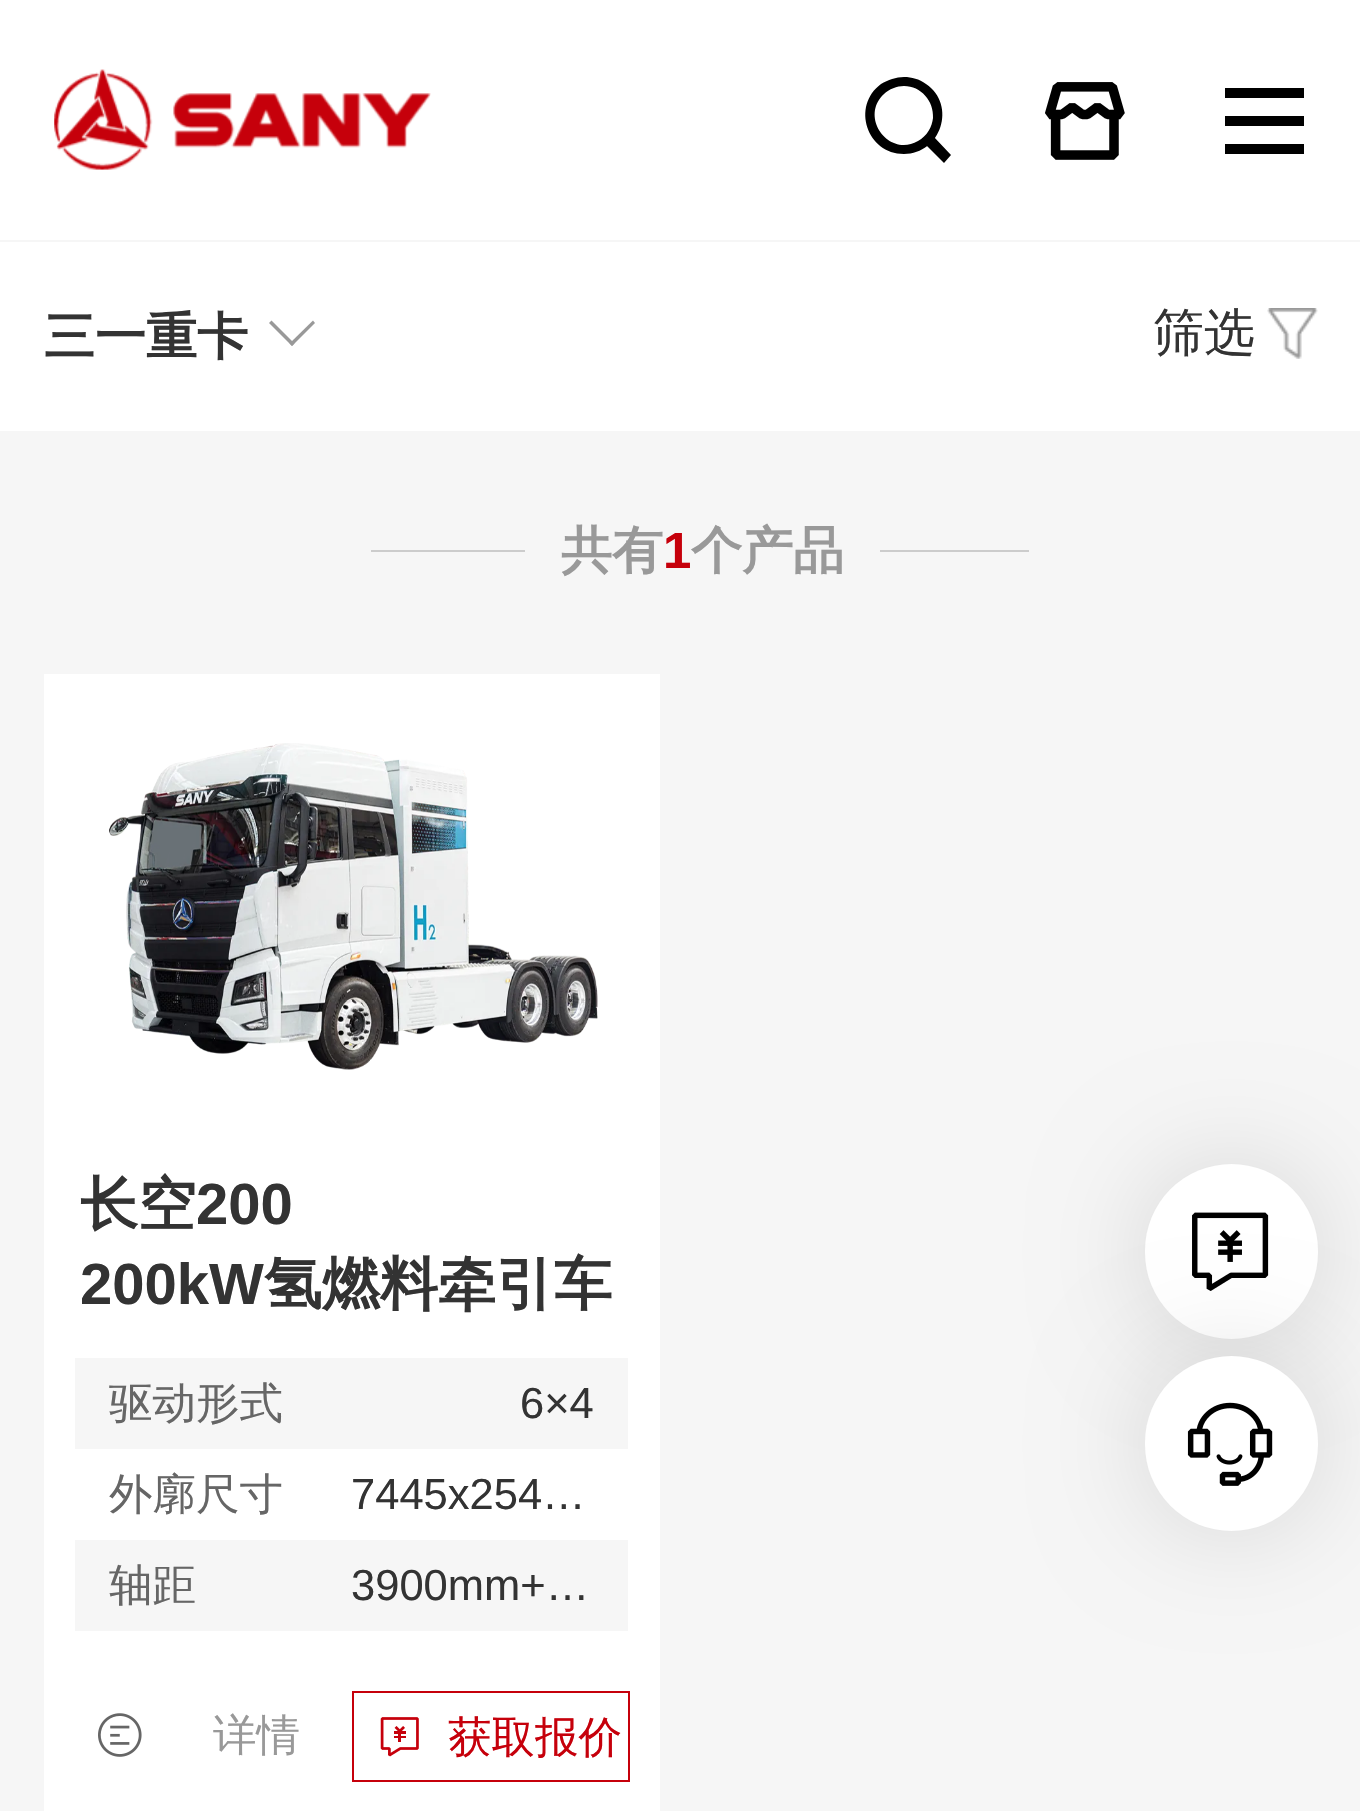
void draw(SkCanvas* canvas) {
    SkPaint paint;
    paint.setAntiAlias(true);
    auto face = [&](const char* family, int weight, float size, bool italic = false) {
        SkFontStyle style(weight, SkFontStyle::kNormal_Width,
            italic ? SkFontStyle::kItalic_Slant : SkFontStyle::kUpright_Slant);
        SkFont result(fontMgr->matchFamilyStyle(family, style), size);
        result.setSubpixel(true);
        return result;
    };
    auto write = [&](const char* s, float x, float y, const SkFont& font, SkColor color) {
        SkPaint ink(SkColor4f::FromColor(color));
        ink.setAntiAlias(true);
        canvas->drawString(s, x, y, font, ink);
    };
    auto block = [&](float x, float y, float w, float h, SkColor color) {
        SkPaint ink(SkColor4f::FromColor(color));
        ink.setAntiAlias(true);
        canvas->drawRect(SkRect::MakeXYWH(x, y, w, h), ink);
    };
    auto card = [&](float x, float y, float w, float h, float radius, SkColor color) {
        SkPaint ink(SkColor4f::FromColor(color));
        ink.setAntiAlias(true);
        canvas->drawRoundRect(SkRect::MakeXYWH(x, y, w, h), radius, radius, ink);
    };
    auto paste = [&](const char* path, float x, float y, float w, float h) {
        auto image = SkImages::DeferredFromEncodedData(SkData::MakeFromFileName(path));
        canvas->drawImageRect(image, SkRect::MakeXYWH(x, y, w, h), SkSamplingOptions());
    };
    canvas->clear(SK_ColorWHITE);
    paste("pic1.png", 54, 69, 377, 101);
    paint.setColor(SK_ColorBLACK);
    canvas->drawPath(SkPathBuilder().moveTo(904, 154).cubicTo(867, 154, 851, 106, 881, 84).cubicTo(888, 80, 896, 77, 904, 77).cubicTo(912, 77, 919, 79, 926, 84).cubicTo(957, 105, 941, 154, 904, 154).close().moveTo(904, 86).cubicTo(897, 86, 889, 89, 884, 94).cubicTo(859, 117, 889, 158, 918, 141).cubicTo(927, 136, 932, 127, 933, 118).cubicTo(934, 101, 921, 86, 904, 86).close().moveTo(926, 145).lineTo(934, 137).lineTo(951, 155).lineTo(944, 163).close().detach(), paint);
    paste("pic2.png", 1045, 82, 80, 78);
    canvas->drawPath(SkPathBuilder().moveTo(1225, 88).lineTo(1304, 88).lineTo(1304, 98).lineTo(1225, 98).close().moveTo(1225, 116).lineTo(1304, 116).lineTo(1304, 126).lineTo(1225, 126).close().moveTo(1225, 144).lineTo(1304, 144).lineTo(1304, 154).lineTo(1225, 154).close().detach(), paint);
    block(0, 240, 1360, 2, SkColorSetRGB(246, 246, 246));
    auto kFont1 = face("WenQuanYi Zen Hei", 700, 51);
    write("三一重卡", 44, 354, kFont1, SkColorSetRGB(51, 51, 51));
    paint.setColor(SkColorSetRGB(153, 153, 153));
    canvas->drawPath(SkPathBuilder().moveTo(289.5f, 343.5f).lineTo(313, 320.5f).lineTo(315, 323).lineTo(292, 346).close().detach(), paint);
    canvas->drawPath(SkPathBuilder().moveTo(269, 323).lineTo(271.5f, 320.5f).lineTo(294.5f, 343.5f).lineTo(292, 346).close().detach(), paint);
    paste("pic3.png", 1267, 308, 51, 51);
    auto kFont2 = face("WenQuanYi Zen Hei", 500, 51);
    write("筛选", 1153, 350, kFont2, SkColorSetRGB(51, 51, 51));
    block(0, 431, 1360, 1380, SkColorSetRGB(246, 246, 246));
    block(371, 550, 658, 2, SkColorSetRGB(204, 204, 204));
    block(525, 550, 355, 2, SkColorSetRGB(246, 246, 246));
    write("共有", 561, 568, kFont1, SkColorSetRGB(153, 153, 153));
    auto kFont3 = face("Liberation Sans", 700, 51);
    write("1", 663, 568, kFont3, SkColorSetRGB(198, 0, 11));
    write("个产品", 691, 568, kFont1, SkColorSetRGB(153, 153, 153));
    block(44, 674, 616, 1137, SK_ColorWHITE);
    paste("pic4.png", 109, 743, 489, 327);
    auto kFont4 = face("WenQuanYi Zen Hei", 700, 58);
    write("长空", 80, 1224, kFont4, SkColorSetRGB(51, 51, 51));
    auto kFont5 = face("Liberation Sans", 700, 58);
    write("200", 196, 1224, kFont5, SkColorSetRGB(51, 51, 51));
    write("200kW", 80, 1304, kFont5, SkColorSetRGB(51, 51, 51));
    write("氢燃料牵引车", 264, 1304, kFont4, SkColorSetRGB(51, 51, 51));
    block(75, 1358, 553, 91, SkColorSetRGB(246, 246, 246));
    auto kFont6 = face("WenQuanYi Zen Hei", 500, 43.5f);
    write("驱动形式", 109, 1418, kFont6, SkColorSetRGB(102, 102, 102));
    auto kFont7 = face("Liberation Sans", 400, 43.5f);
    write("6×4", 520, 1418, kFont7, SkColorSetRGB(51, 51, 51));
    write("外廓尺寸", 109, 1509, kFont6, SkColorSetRGB(102, 102, 102));
    write("7445x254…", 351, 1509, kFont7, SkColorSetRGB(51, 51, 51));
    block(75, 1540, 553, 91, SkColorSetRGB(246, 246, 246));
    write("轴距", 109, 1600, kFont6, SkColorSetRGB(102, 102, 102));
    write("3900mm+…", 351, 1600, kFont7, SkColorSetRGB(51, 51, 51));
    paste("pic5.png", 98, 1713, 44, 44);
    write("详情", 213, 1750, kFont6, SkColorSetRGB(153, 153, 153));
    paste("pic6.png", 380, 1717, 39, 40);
    paint.setStyle(SkPaint::kStroke_Style);
    paint.setStrokeWidth(2);
    paint.setColor(SkColorSetRGB(198, 0, 11));
    canvas->drawRect(SkRect::MakeXYWH(353, 1692, 276, 89), paint);
    write("获取报价", 448, 1752, kFont6, SkColorSetRGB(198, 0, 11));
    paint.setStyle(SkPaint::kFill_Style);
    paint.setColor(SkColorSetARGB(33, 0, 0, 0));
    paint.setMaskFilter(SkMaskFilter::MakeBlur(kNormal_SkBlurStyle, 54.5f));
    canvas->drawRoundRect(SkRect::MakeXYWH(1145, 1164, 173, 175), 86.5f, 86.5f, paint);
    paint.setMaskFilter(nullptr);
    card(1145, 1164, 173, 175, 86.5f, SK_ColorWHITE);
    paste("pic7.png", 1192, 1212, 77, 79);
    paint.setMaskFilter(SkMaskFilter::MakeBlur(kNormal_SkBlurStyle, 54.5f));
    canvas->drawRoundRect(SkRect::MakeXYWH(1145, 1356, 173, 175), 86.5f, 86.5f, paint);
    paint.setMaskFilter(nullptr);
    card(1145, 1356, 173, 175, 86.5f, SK_ColorWHITE);
    paste("pic8.png", 1187, 1402, 86, 84);
}
